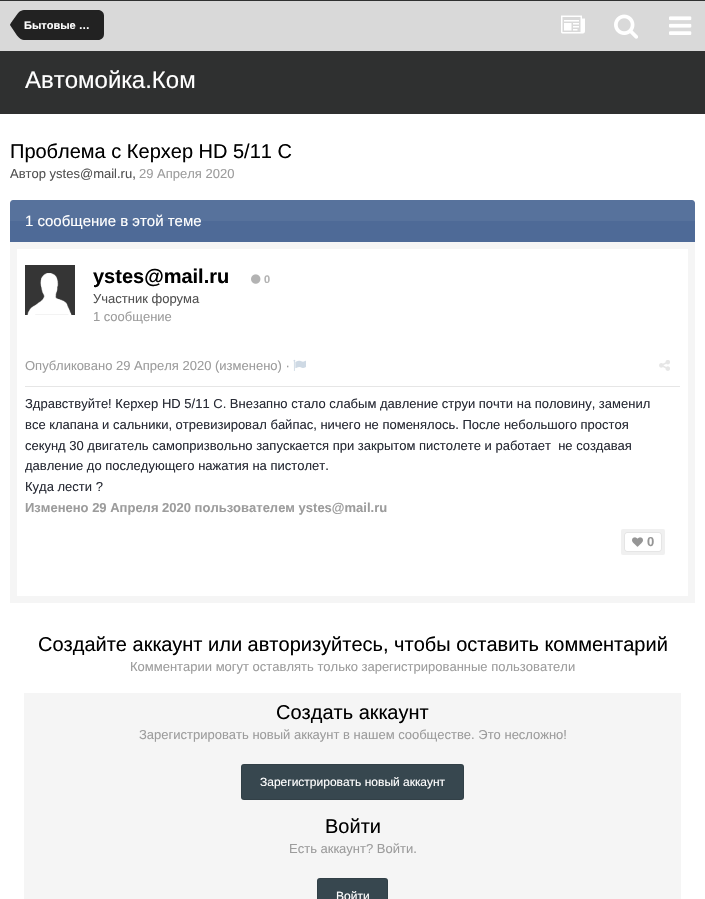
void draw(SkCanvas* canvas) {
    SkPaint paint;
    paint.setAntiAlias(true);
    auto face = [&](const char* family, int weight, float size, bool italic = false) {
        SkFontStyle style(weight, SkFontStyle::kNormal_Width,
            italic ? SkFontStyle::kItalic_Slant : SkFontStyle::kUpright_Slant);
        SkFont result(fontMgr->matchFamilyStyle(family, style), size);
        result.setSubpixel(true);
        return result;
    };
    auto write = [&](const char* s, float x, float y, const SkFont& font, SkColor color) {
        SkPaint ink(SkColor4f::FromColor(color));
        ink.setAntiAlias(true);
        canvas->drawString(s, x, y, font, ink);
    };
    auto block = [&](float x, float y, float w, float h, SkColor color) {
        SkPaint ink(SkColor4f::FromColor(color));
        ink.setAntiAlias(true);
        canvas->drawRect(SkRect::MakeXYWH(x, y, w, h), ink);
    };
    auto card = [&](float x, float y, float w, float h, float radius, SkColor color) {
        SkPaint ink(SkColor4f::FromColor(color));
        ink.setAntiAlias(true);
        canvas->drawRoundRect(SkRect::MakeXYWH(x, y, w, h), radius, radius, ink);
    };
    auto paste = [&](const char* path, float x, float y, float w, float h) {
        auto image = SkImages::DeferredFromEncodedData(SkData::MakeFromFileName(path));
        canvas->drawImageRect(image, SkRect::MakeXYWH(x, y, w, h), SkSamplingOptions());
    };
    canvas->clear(SkColorSetRGB(47, 48, 48));
    block(0, 1, 705, 50, SkColorSetRGB(217, 217, 217));
    paint.setColor(SkColorSetRGB(34, 34, 34));
    canvas->drawPath(SkPathBuilder().moveTo(24, 10).lineTo(98, 10).cubicTo(101.5f, 10, 104, 12.5f, 104, 16).lineTo(104, 34).cubicTo(104, 37.5f, 101.5f, 40, 98, 40).lineTo(24, 40).close().detach(), paint);
    canvas->drawPath(SkPathBuilder().moveTo(24, 25).lineTo(24, 40).cubicTo(22, 40, 19.5f, 38.5f, 17, 35.5f).lineTo(10, 25).close().moveTo(24, 25).lineTo(10, 25).cubicTo(10, 24, 18.5f, 12.5f, 19, 12).cubicTo(20.5f, 11, 22, 10, 24, 10).close().detach(), paint);
    auto kFont1 = face("Liberation Sans", 700, 11);
    write("Бытовые …", 24, 29, kFont1, SK_ColorWHITE);
    paste("pic1.png", 561, 15, 24, 19);
    paste("pic2.png", 614, 14, 24, 25);
    paste("pic3.png", 669, 16, 23, 19);
    auto kFont2 = face("Liberation Sans", 400, 24);
    write("Автомойка.Ком", 25, 88, kFont2, SK_ColorWHITE);
    block(0, 114, 705, 785, SK_ColorWHITE);
    auto kFont3 = face("Liberation Sans", 400, 20);
    write("Проблема с Керхер HD 5/11 С", 10, 158, kFont3, SK_ColorBLACK);
    auto kFont4 = face("Liberation Sans", 400, 13);
    write("Автор ystes@mail.ru,", 10, 178, kFont4, SkColorSetRGB(82, 82, 82));
    write("29 Апреля 2020", 139, 178, kFont4, SkColorSetRGB(156, 156, 156));
    paint.setColor(SkColorSetRGB(78, 106, 151));
    canvas->drawPath(SkPathBuilder().moveTo(13, 200).lineTo(692, 200).cubicTo(693.5f, 200, 695, 201.5f, 695, 203).lineTo(695, 242).lineTo(10, 242).lineTo(10, 203).cubicTo(10, 201.5f, 11.5f, 200, 13, 200).close().detach(), paint);
    block(10, 200, 685, 21, SkColorSetARGB(13, 255, 255, 255));
    auto kFont5 = face("Liberation Sans", 400, 15);
    write("1 сообщение в этой теме", 25, 226, kFont5, SK_ColorWHITE);
    block(10, 242, 685, 361, SkColorSetRGB(245, 245, 245));
    block(17, 249, 671, 347, SK_ColorWHITE);
    auto kFont6 = face("Liberation Sans", 700, 20);
    write("ystes@mail.ru", 93, 283, kFont6, SK_ColorBLACK);
    paste("pic4.png", 251, 274, 10, 10);
    write("0", 264, 283, kFont1, SkColorSetRGB(179, 179, 179));
    paste("pic5.png", 25, 265, 50, 50);
    write("Участник форума", 93, 303, kFont4, SkColorSetRGB(82, 82, 82));
    write("1 сообщение", 93, 321, kFont4, SkColorSetRGB(156, 156, 156));
    block(25, 386, 655, 1, SkColorSetRGB(230, 230, 230));
    write("Опубликовано 29 Апреля 2020 (изменено) ·", 25, 370, kFont4, SkColorSetRGB(156, 156, 156));
    paste("pic6.png", 293, 359, 13, 12);
    paste("pic7.png", 659, 360, 11, 11);
    write("Здравствуйте! Керхер HD 5/11 C. Внезапно стало слабым давление струи почти на половину, заменил", 25, 408, kFont4, SkColorSetRGB(39, 42, 52));
    write("все клапана и сальники, отревизировал байпас, ничего не поменялось. После небольшого простоя", 25, 429, kFont4, SkColorSetRGB(39, 42, 52));
    write("секунд 30 двигатель самопризвольно запускается при закрытом пистолете и работает  не создавая", 25, 450, kFont4, SkColorSetRGB(39, 42, 52));
    write("давление до последующего нажатия на пистолет.", 25, 470, kFont4, SkColorSetRGB(39, 42, 52));
    write("Куда лести ?", 25, 491, kFont4, SkColorSetRGB(39, 42, 52));
    auto kFont7 = face("Liberation Sans", 700, 13);
    write("Изменено 29 Апреля 2020 пользователем ystes@mail.ru", 25, 512, kFont7, SkColorSetRGB(156, 156, 156));
    card(621, 529, 44, 26, 2, SkColorSetRGB(240, 240, 240));
    card(624, 532, 38, 20, 3, SK_ColorWHITE);
    paint.setStyle(SkPaint::kStroke_Style);
    paint.setStrokeWidth(1);
    paint.setColor(SkColorSetARGB(26, 0, 0, 0));
    canvas->drawRoundRect(SkRect::MakeXYWH(624.5f, 532.5f, 37, 19), 2.5f, 2.5f, paint);
    paste("pic8.png", 632, 537, 11, 10);
    write("0", 647, 546, kFont7, SkColorSetRGB(149, 149, 149));
    write("Создайте аккаунт или авторизуйтесь, чтобы оставить комментарий", 38, 651, kFont3, SK_ColorBLACK);
    write("Комментарии могут оставлять только зарегистрированные пользователи", 130, 671, kFont4, SkColorSetRGB(156, 156, 156));
    block(24, 693, 657, 206, SkColorSetRGB(245, 245, 245));
    write("Создать аккаунт", 276, 719, kFont3, SK_ColorBLACK);
    write("Зарегистрировать новый аккаунт в нашем сообществе. Это несложно!", 139, 739, kFont4, SkColorSetRGB(156, 156, 156));
    card(241, 764, 223, 36, 3, SkColorSetRGB(55, 71, 79));
    canvas->drawRoundRect(SkRect::MakeXYWH(241.5f, 764.5f, 222, 35), 2.5f, 2.5f, paint);
    auto kFont8 = face("Liberation Sans", 400, 12);
    write("Зарегистрировать новый аккаунт", 260, 786, kFont8, SK_ColorWHITE);
    write("Войти", 325, 833, kFont3, SK_ColorBLACK);
    write("Есть аккаунт? Войти.", 289, 853, kFont4, SkColorSetRGB(156, 156, 156));
    card(317, 878, 71, 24, 3, SkColorSetRGB(55, 71, 79));
    canvas->drawRoundRect(SkRect::MakeXYWH(317.5f, 878.5f, 70, 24), 2.5f, 2.5f, paint);
    write("Войти", 336, 900, kFont8, SK_ColorWHITE);
}
